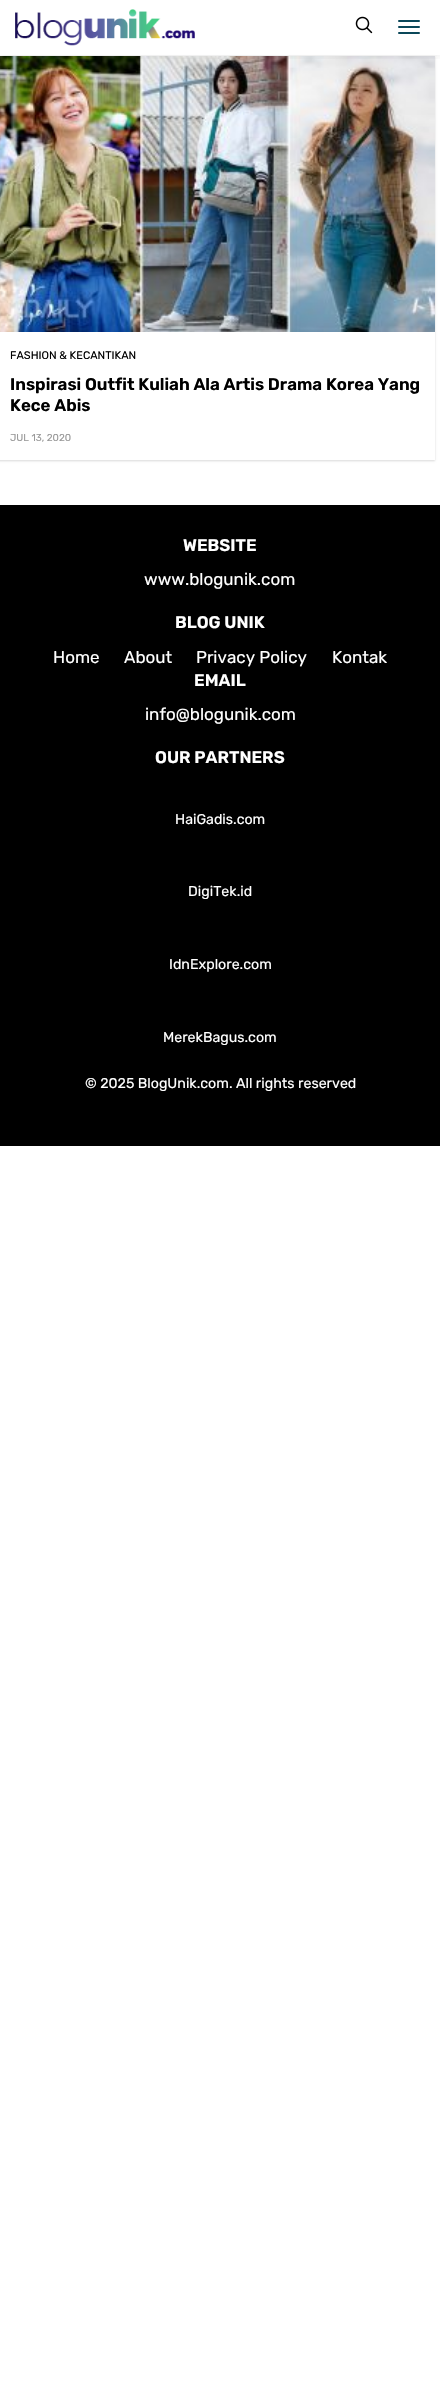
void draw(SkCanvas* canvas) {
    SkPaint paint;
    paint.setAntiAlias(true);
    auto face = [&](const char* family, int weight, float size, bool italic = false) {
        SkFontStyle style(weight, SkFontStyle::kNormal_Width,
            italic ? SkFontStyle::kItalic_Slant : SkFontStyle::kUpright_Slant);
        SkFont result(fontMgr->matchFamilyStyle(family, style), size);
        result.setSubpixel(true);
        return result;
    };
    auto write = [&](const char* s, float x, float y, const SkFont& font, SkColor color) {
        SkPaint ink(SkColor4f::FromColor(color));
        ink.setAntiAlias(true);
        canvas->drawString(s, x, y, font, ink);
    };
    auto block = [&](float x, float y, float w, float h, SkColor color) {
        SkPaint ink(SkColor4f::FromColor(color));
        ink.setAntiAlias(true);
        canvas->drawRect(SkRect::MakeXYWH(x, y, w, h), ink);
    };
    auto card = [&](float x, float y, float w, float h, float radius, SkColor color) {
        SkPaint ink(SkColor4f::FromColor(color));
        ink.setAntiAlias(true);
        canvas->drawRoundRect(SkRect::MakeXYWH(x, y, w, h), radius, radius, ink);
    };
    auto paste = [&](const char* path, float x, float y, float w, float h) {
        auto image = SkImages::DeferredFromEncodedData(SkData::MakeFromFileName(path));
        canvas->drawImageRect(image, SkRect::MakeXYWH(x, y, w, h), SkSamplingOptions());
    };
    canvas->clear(SK_ColorWHITE);
    canvas->save();
    canvas->clipPath(SkPathBuilder(SkPathFillType::kEvenOdd).moveTo(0, 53).lineTo(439, 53).lineTo(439, 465).lineTo(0, 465).close().moveTo(-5, 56).lineTo(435, 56).lineTo(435, 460).lineTo(-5, 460).close().detach(), true);
    paint.setColor(SkColorSetARGB(38, 0, 0, 0));
    paint.setMaskFilter(SkMaskFilter::MakeBlur(kNormal_SkBlurStyle, 1));
    canvas->drawRect(SkRect::MakeXYWH(-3, 57, 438, 404), paint);
    paint.setMaskFilter(nullptr);
    canvas->restore();
    paste("pic3.png", 0, 56, 435, 276);
    canvas->save();
    canvas->clipRect(SkRect::MakeXYWH(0, 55, 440, 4));
    paint.setColor(SkColorSetARGB(26, 0, 0, 0));
    paint.setMaskFilter(SkMaskFilter::MakeBlur(kNormal_SkBlurStyle, 4.5f));
    canvas->drawRect(SkRect::MakeXYWH(0, 0, 440, 55), paint);
    paint.setMaskFilter(nullptr);
    canvas->restore();
    paste("pic1.png", 15, 9, 180, 37);
    paste("pic2.png", 355, 16, 18, 18);
    card(398, 20, 22, 2, 1, SkColorSetRGB(10, 71, 89));
    card(398, 26, 22, 2, 1, SkColorSetRGB(10, 71, 89));
    card(398, 32, 22, 2, 1, SkColorSetRGB(10, 71, 89));
    auto kFont1 = face("Rubik", 400, 11);
    write("FASHION & KECANTIKAN", 10, 359, kFont1, SK_ColorBLACK);
    auto kFont2 = face("Rubik", 600, 16.9f);
    write("Inspirasi Outfit Kuliah Ala Artis Drama Korea Yang", 10, 390, kFont2, SK_ColorBLACK);
    write("Kece Abis", 10, 411, kFont2, SK_ColorBLACK);
    auto kFont3 = face("Rubik", 400, 10);
    write("JUL 13, 2020", 10, 441, kFont3, SkColorSetRGB(153, 153, 153));
    block(0, 505, 440, 641, SK_ColorBLACK);
    write("WEBSITE", 183, 551, kFont2, SK_ColorWHITE);
    auto kFont4 = face("Rubik", 400, 17);
    write("www.blogunik.com", 144, 585, kFont4, SK_ColorWHITE);
    write("BLOG UNIK", 175, 628, kFont2, SK_ColorWHITE);
    write("Home", 53, 663, kFont4, SK_ColorWHITE);
    write("About", 124, 663, kFont4, SK_ColorWHITE);
    write("Privacy Policy", 196, 663, kFont4, SK_ColorWHITE);
    write("Kontak", 332, 663, kFont4, SK_ColorWHITE);
    write("EMAIL", 194, 686, kFont2, SK_ColorWHITE);
    write("info@blogunik.com", 145, 720, kFont4, SK_ColorWHITE);
    write("OUR PARTNERS", 155, 763, kFont2, SK_ColorWHITE);
    auto kFont5 = face("Rubik", 400, 14.2f);
    write("HaiGadis.com", 175, 824, kFont5, SK_ColorWHITE);
    write("DigiTek.id", 188, 896, kFont5, SK_ColorWHITE);
    write("IdnExplore.com", 169, 969, kFont5, SK_ColorWHITE);
    write("MerekBagus.com", 163, 1042, kFont5, SK_ColorWHITE);
    write("© 2025 BlogUnik.com. All rights reserved", 85, 1088, kFont5, SK_ColorWHITE);
}
